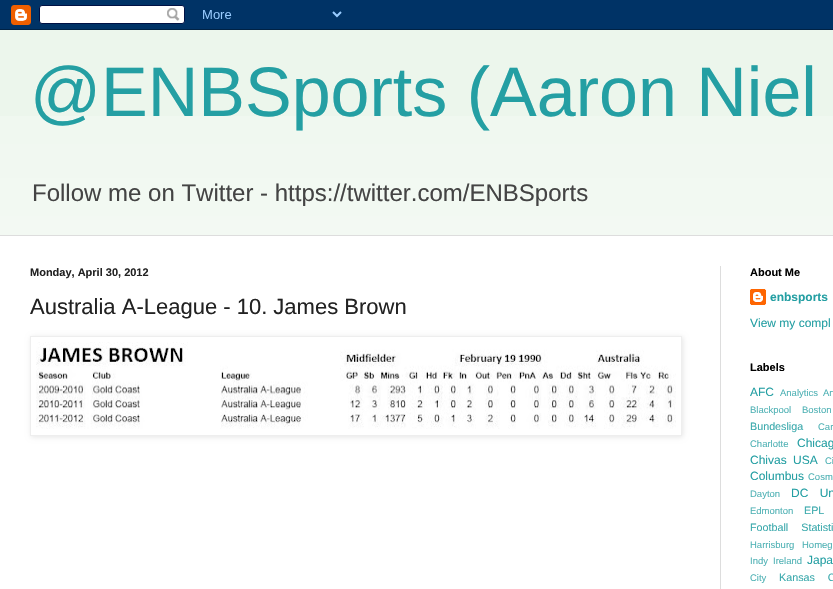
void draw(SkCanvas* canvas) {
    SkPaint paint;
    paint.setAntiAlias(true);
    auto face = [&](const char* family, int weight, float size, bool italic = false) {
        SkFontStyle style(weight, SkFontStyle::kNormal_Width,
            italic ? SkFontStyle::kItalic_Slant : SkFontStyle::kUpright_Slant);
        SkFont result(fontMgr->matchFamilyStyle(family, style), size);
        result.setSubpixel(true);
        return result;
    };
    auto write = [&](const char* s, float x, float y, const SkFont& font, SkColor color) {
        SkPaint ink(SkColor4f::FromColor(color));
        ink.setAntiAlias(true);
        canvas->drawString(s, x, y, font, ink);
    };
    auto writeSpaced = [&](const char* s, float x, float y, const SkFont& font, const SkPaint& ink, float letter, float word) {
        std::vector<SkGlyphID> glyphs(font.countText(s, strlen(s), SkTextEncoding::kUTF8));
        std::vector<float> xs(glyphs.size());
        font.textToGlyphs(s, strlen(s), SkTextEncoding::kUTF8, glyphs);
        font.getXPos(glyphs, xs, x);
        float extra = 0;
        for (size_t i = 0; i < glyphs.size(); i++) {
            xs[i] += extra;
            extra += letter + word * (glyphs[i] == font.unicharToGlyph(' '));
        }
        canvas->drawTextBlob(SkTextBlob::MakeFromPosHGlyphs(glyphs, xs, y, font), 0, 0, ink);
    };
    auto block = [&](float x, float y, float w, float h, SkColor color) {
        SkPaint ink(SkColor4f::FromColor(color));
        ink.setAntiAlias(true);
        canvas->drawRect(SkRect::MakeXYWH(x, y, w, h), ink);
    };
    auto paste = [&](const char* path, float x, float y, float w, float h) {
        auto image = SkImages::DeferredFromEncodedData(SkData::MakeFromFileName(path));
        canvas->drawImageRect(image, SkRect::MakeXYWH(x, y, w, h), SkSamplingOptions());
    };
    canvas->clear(SkColorSetRGB(236, 246, 236));
    paste("pic1.png", 0, 0, 833, 30);
    paste("pic4.png", 0, 116, 833, 119);
    auto kFont1 = face("Liberation Sans", 400, 70);
    write("@ENBSports (Aaron Niel", 30, 116, kFont1, SkColorSetRGB(36, 159, 163));
    auto kFont2 = face("Liberation Sans", 400, 24);
    write("Follow me on Twitter - https://twitter.com/ENBSports", 32, 201, kFont2, SkColorSetRGB(68, 68, 68));
    block(0, 236, 833, 353, SK_ColorWHITE);
    block(0, 235, 833, 1, SkColorSetRGB(221, 221, 221));
    block(720, 266, 1, 323, SkColorSetRGB(221, 221, 221));
    auto kFont3 = face("Liberation Sans", 700, 11);
    write("Monday, April 30, 2012", 30, 276, kFont3, SkColorSetRGB(34, 34, 34));
    auto kFont4 = face("Liberation Sans", 400, 22);
    write("Australia A-League - 10. James Brown", 30, 314, kFont4, SkColorSetRGB(34, 34, 34));
    canvas->save();
    canvas->clipPath(SkPathBuilder(SkPathFillType::kEvenOdd).moveTo(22, 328).lineTo(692, 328).lineTo(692, 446).lineTo(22, 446).close().moveTo(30, 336).lineTo(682, 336).lineTo(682, 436).lineTo(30, 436).close().detach(), true);
    paint.setColor(SkColorSetARGB(26, 0, 0, 0));
    paint.setMaskFilter(SkMaskFilter::MakeBlur(kNormal_SkBlurStyle, 2.5f));
    canvas->drawRect(SkRect::MakeXYWH(31, 337, 652, 100), paint);
    paint.setMaskFilter(nullptr);
    canvas->restore();
    paint.setStyle(SkPaint::kStroke_Style);
    paint.setStrokeWidth(1);
    paint.setColor(SkColorSetRGB(238, 238, 238));
    canvas->drawRect(SkRect::MakeXYWH(30.5f, 336.5f, 651, 99), paint);
    paste("pic2.png", 36, 342, 640, 87);
    write("About Me", 750, 276, kFont3, SK_ColorBLACK);
    paste("pic3.png", 750, 289, 16, 16);
    auto kFont5 = face("Liberation Sans", 700, 12);
    write("enbsports", 770, 301, kFont5, SkColorSetRGB(36, 159, 163));
    auto kFont6 = face("Liberation Sans", 400, 12);
    write("View my compl", 750, 327, kFont6, SkColorSetRGB(36, 159, 163));
    write("Labels", 750, 371, kFont3, SK_ColorBLACK);
    write("AFC", 750, 396, kFont6, SkColorSetRGB(36, 159, 163));
    auto kFont7 = face("Liberation Sans", 400, 9.5f);
    write("Analytics", 780, 396, kFont7, SkColorSetRGB(80, 178, 181));
    write("An", 823, 396, kFont7, SkColorSetRGB(80, 178, 181));
    write("Blackpool", 750, 413, kFont7, SkColorSetRGB(80, 178, 181));
    write("Boston", 802, 413, kFont7, SkColorSetRGB(80, 178, 181));
    auto kFont8 = face("Liberation Sans", 400, 10.75f);
    write("Bundesliga", 750, 430, kFont8, SkColorSetRGB(58, 169, 172));
    write("Car", 818, 430, kFont7, SkColorSetRGB(80, 178, 181));
    write("Charlotte", 750, 447, kFont7, SkColorSetRGB(80, 178, 181));
    write("Chicag", 797, 447, kFont6, SkColorSetRGB(36, 159, 163));
    paint.setStyle(SkPaint::kFill_Style);
    paint.setColor(SkColorSetRGB(36, 159, 163));
    writeSpaced("Chivas USA", 750, 464, kFont6, paint, 0, 3);
    write("Ci", 825, 464, kFont7, SkColorSetRGB(80, 178, 181));
    write("Columbus", 750, 480, kFont6, SkColorSetRGB(36, 159, 163));
    write("Cosm", 808, 480, kFont7, SkColorSetRGB(80, 178, 181));
    write("Dayton", 750, 497, kFont7, SkColorSetRGB(80, 178, 181));
    writeSpaced("DC Un", 791, 497, kFont6, paint, 0, 8);
    write("Edmonton", 750, 514, kFont7, SkColorSetRGB(80, 178, 181));
    write("EPL", 804, 514, kFont8, SkColorSetRGB(58, 169, 172));
    paint.setColor(SkColorSetRGB(58, 169, 172));
    writeSpaced("Football Statisti", 750, 531, kFont8, paint, 0, 10);
    write("Harrisburg", 750, 548, kFont7, SkColorSetRGB(80, 178, 181));
    write("Homeg", 802, 548, kFont7, SkColorSetRGB(80, 178, 181));
    write("Indy", 750, 564, kFont7, SkColorSetRGB(80, 178, 181));
    write("Ireland", 773, 564, kFont7, SkColorSetRGB(80, 178, 181));
    paint.setColor(SkColorSetRGB(36, 159, 163));
    writeSpaced("Japa", 807, 564, kFont6, paint, 0, 2);
    write("City", 750, 581, kFont7, SkColorSetRGB(80, 178, 181));
    paint.setColor(SkColorSetRGB(58, 169, 172));
    writeSpaced("Kansas C", 779, 581, kFont8, paint, 0, 10);
}
